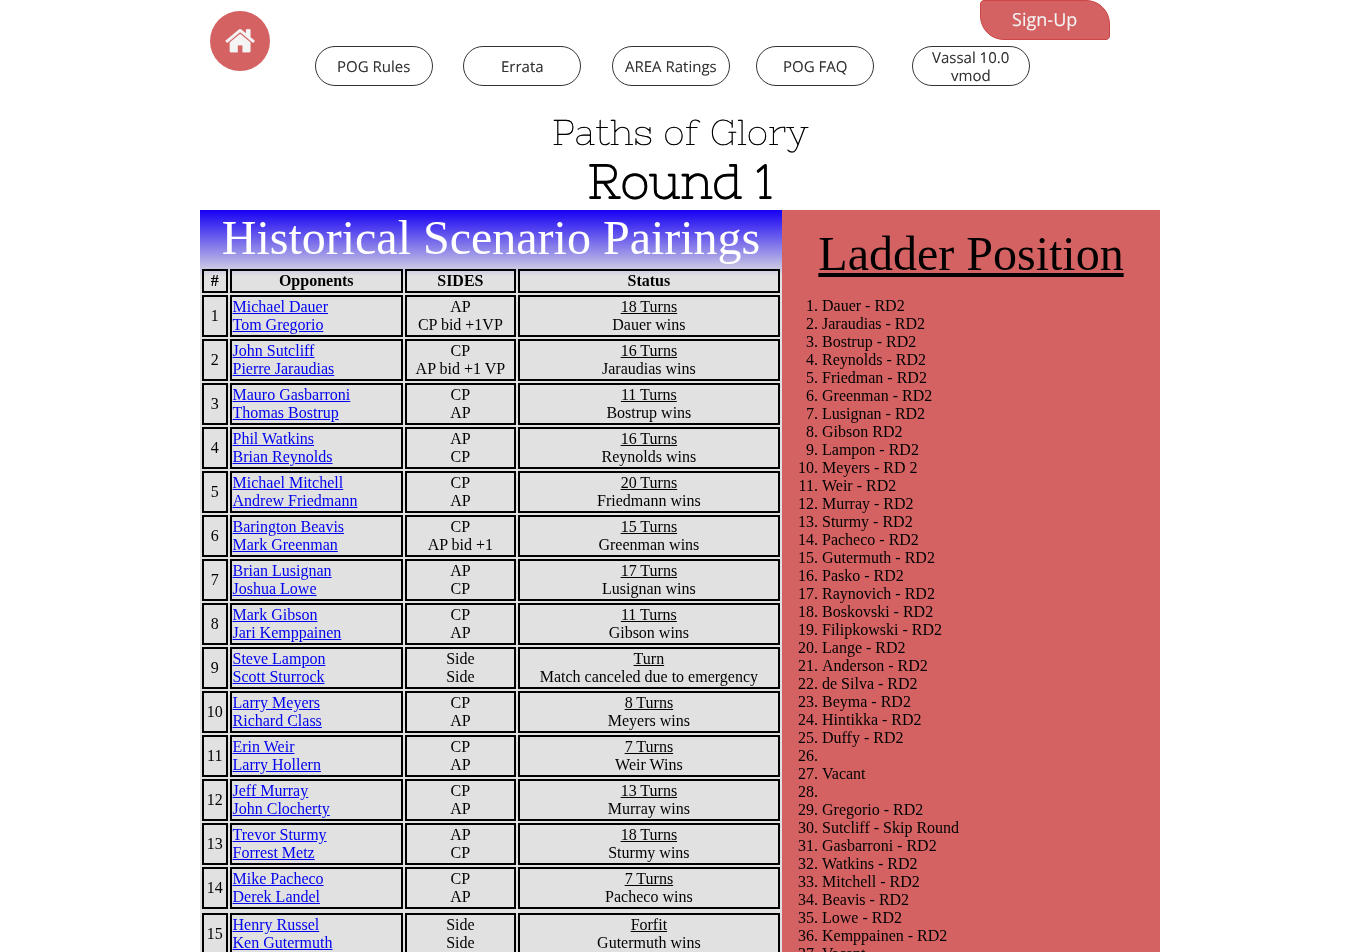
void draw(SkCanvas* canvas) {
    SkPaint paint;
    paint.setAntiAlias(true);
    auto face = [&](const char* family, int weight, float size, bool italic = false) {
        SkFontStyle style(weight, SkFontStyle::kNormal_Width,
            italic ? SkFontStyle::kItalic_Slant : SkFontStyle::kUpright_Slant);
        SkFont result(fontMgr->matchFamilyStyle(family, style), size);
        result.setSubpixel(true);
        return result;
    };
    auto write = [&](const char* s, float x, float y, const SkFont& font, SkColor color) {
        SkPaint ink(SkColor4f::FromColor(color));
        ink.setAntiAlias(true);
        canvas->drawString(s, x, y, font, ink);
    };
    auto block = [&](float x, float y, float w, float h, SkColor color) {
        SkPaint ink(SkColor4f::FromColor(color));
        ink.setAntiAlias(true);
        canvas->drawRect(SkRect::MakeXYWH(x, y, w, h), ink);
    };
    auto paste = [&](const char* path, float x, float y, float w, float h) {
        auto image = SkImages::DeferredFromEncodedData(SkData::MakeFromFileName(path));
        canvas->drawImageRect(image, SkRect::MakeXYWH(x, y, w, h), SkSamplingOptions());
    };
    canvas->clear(SK_ColorWHITE);
    paint.setColor(SkColorSetRGB(213, 98, 98));
    canvas->drawCircle(240, 41, 30, paint);
    paste("pic1.png", 225, 29, 30, 24);
    canvas->drawPath(SkPathBuilder().moveTo(984, 0.5f).lineTo(1086, 0.5f).cubicTo(1099, 0.5f, 1109.5f, 11, 1109.5f, 24).lineTo(1109.5f, 36).cubicTo(1109.5f, 38, 1108, 39.5f, 1106, 39.5f).lineTo(1004, 39.5f).cubicTo(991, 39.5f, 980.5f, 29, 980.5f, 16).lineTo(980.5f, 4).cubicTo(980.5f, 2, 982, 0.5f, 984, 0.5f).close().detach(), paint);
    paint.setStyle(SkPaint::kStroke_Style);
    paint.setStrokeWidth(1);
    paint.setColor(SkColorSetRGB(205, 70, 70));
    canvas->drawPath(SkPathBuilder().moveTo(984, 0.5f).lineTo(1086, 0.5f).cubicTo(1099, 0.5f, 1109.5f, 11, 1109.5f, 24).lineTo(1109.5f, 36).cubicTo(1109.5f, 38, 1108, 39.5f, 1106, 39.5f).lineTo(1004, 39.5f).cubicTo(991, 39.5f, 980.5f, 29, 980.5f, 16).lineTo(980.5f, 4).cubicTo(980.5f, 2, 982, 0.5f, 984, 0.5f).close().detach(), paint);
    auto kFont1 = face("Open Sans", 400, 18);
    write("Sign-Up", 1012, 26, kFont1, SkColorSetRGB(244, 244, 244));
    paint.setColor(SkColorSetRGB(51, 51, 51));
    canvas->drawRoundRect(SkRect::MakeXYWH(315.5f, 46.5f, 117, 39), 19.5f, 19.5f, paint);
    auto kFont2 = face("Open Sans", 400, 15);
    write("POG Rules", 337, 72, kFont2, SkColorSetRGB(51, 51, 51));
    canvas->drawRoundRect(SkRect::MakeXYWH(463.5f, 46.5f, 117, 39), 19.5f, 19.5f, paint);
    write("Errata", 501, 72, kFont2, SkColorSetRGB(51, 51, 51));
    canvas->drawRoundRect(SkRect::MakeXYWH(612.5f, 46.5f, 117, 39), 19.5f, 19.5f, paint);
    write("AREA Ratings", 625, 72, kFont2, SkColorSetRGB(51, 51, 51));
    canvas->drawRoundRect(SkRect::MakeXYWH(756.5f, 46.5f, 117, 39), 19.5f, 19.5f, paint);
    write("POG FAQ", 783, 72, kFont2, SkColorSetRGB(51, 51, 51));
    canvas->drawRoundRect(SkRect::MakeXYWH(912.5f, 46.5f, 117, 39), 19.5f, 19.5f, paint);
    write("Vassal 10.0", 932, 63, kFont2, SkColorSetRGB(51, 51, 51));
    write("vmod", 951, 81, kFont2, SkColorSetRGB(51, 51, 51));
    auto kFont3 = face("Nixie One", 400, 36);
    write("Paths of Glory", 552, 145, kFont3, SK_ColorBLACK);
    auto kFont4 = face("Nixie One", 700, 48);
    write("Round 1", 587, 199, kFont4, SK_ColorBLACK);
    paint.setStyle(SkPaint::kFill_Style);
    {
        const SkColor colors[] = {SkColorSetRGB(22, 0, 244), SkColorSetRGB(225, 225, 225), SkColorSetRGB(225, 225, 225)};
        const float stops[] = {0, 0.05f, 1};
        const SkPoint ends[] = {{491, 210}, {491, 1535}};
        paint.setShader(SkGradientShader::MakeLinear(ends, colors, stops, 3, SkTileMode::kClamp));
        paint.setAlpha(255);
    }
    canvas->drawRect(SkRect::MakeXYWH(200, 210, 582, 742), paint);
    paste("pic2.png", 202, 220, 578, 732);
    block(782, 210, 378, 742, SkColorSetRGB(213, 98, 98));
    paste("pic3.png", 798, 235, 326, 717);
}
